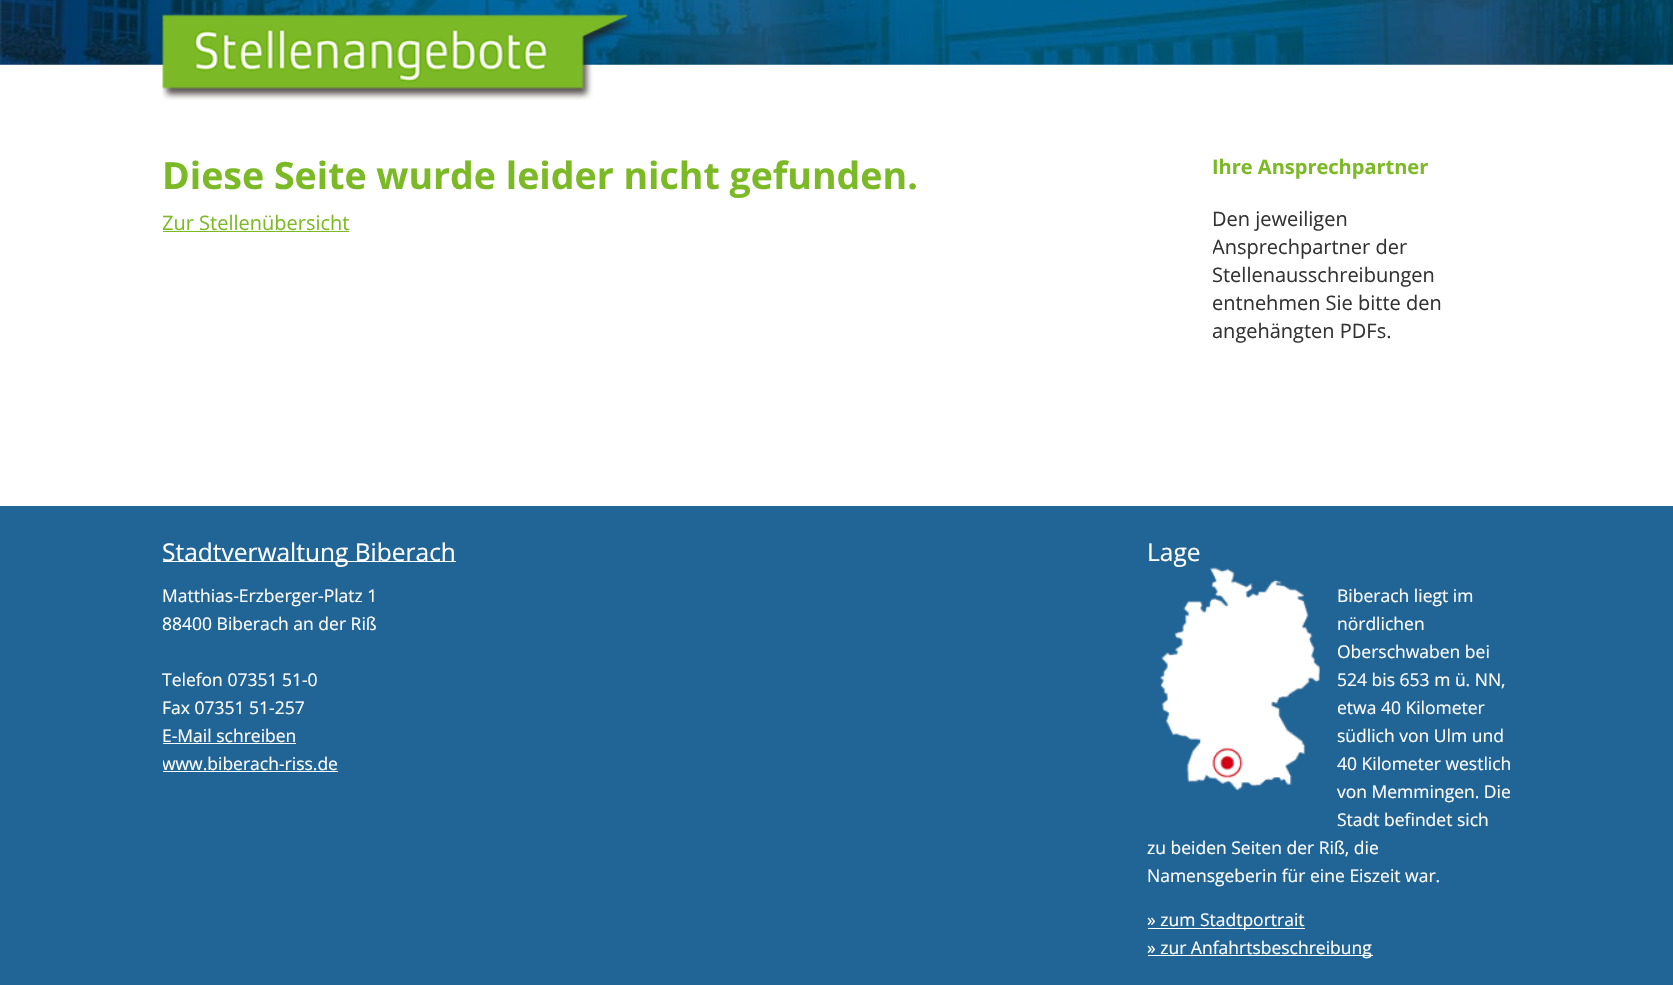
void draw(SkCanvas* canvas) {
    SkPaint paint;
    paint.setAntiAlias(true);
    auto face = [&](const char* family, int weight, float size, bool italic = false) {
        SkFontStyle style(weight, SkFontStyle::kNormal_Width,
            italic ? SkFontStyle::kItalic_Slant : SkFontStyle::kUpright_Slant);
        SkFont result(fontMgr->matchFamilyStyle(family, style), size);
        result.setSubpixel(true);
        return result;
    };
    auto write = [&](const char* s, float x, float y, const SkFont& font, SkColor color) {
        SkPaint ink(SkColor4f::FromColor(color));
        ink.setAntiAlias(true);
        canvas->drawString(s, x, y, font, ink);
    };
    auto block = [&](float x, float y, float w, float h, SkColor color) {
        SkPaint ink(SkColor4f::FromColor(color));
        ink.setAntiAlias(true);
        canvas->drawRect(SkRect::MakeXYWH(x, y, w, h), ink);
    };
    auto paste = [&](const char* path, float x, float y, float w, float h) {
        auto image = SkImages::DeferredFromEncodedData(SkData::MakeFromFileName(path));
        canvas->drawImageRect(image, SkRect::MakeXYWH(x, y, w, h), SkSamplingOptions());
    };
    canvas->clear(SK_ColorWHITE);
    paste("pic1.png", 0, 0, 1673, 65);
    paste("pic2.png", 162, 14, 469, 86);
    auto kFont1 = face("Open Sans", 700, 37.5f);
    write("Diese Seite wurde leider nicht gefunden.", 162, 189, kFont1, SkColorSetRGB(124, 185, 39));
    canvas->save();
    canvas->clipRect(SkRect::MakeXYWH(163, 153, 955, 83));
    auto kFont2 = face("Open Sans", 400, 20);
    write("Zur Stellenübersicht", 162, 230, kFont2, SkColorSetRGB(124, 185, 39));
    canvas->restore();
    block(163, 231, 186, 1, SkColorSetRGB(124, 185, 39));
    auto kFont3 = face("Open Sans", 700, 20);
    write("Ihre Ansprechpartner", 1212, 174, kFont3, SkColorSetRGB(124, 185, 39));
    write("Den jeweiligen", 1212, 226, kFont2, SkColorSetRGB(51, 51, 51));
    canvas->save();
    canvas->clipRect(SkRect::MakeXYWH(1213, 153, 300, 228));
    write("Ansprechpartner der", 1212, 254, kFont2, SkColorSetRGB(51, 51, 51));
    canvas->restore();
    write("Stellenausschreibungen", 1212, 282, kFont2, SkColorSetRGB(51, 51, 51));
    write("entnehmen Sie bitte den", 1212, 310, kFont2, SkColorSetRGB(51, 51, 51));
    write("angehängten PDFs.", 1212, 338, kFont2, SkColorSetRGB(51, 51, 51));
    block(0, 506, 1673, 479, SkColorSetRGB(33, 101, 150));
    block(163, 561, 293, 1, SK_ColorWHITE);
    auto kFont4 = face("Open Sans", 400, 24.5f);
    write("Stadtverwaltung Biberach", 162, 561, kFont4, SK_ColorWHITE);
    auto kFont5 = face("Open Sans", 400, 17.5f);
    write("Matthias-Erzberger-Platz 1", 162, 602, kFont5, SK_ColorWHITE);
    write("88400 Biberach an der Riß", 162, 630, kFont5, SK_ColorWHITE);
    write("Telefon 07351 51-0", 162, 686, kFont5, SK_ColorWHITE);
    write("Fax 07351 51-257", 162, 714, kFont5, SK_ColorWHITE);
    write("E-Mail schreiben", 162, 742, kFont5, SK_ColorWHITE);
    block(163, 743, 133, 1, SK_ColorWHITE);
    canvas->save();
    canvas->clipRect(SkRect::MakeXYWH(163, 538, 1350, 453));
    write("www.biberach-riss.de", 162, 770, kFont5, SK_ColorWHITE);
    canvas->restore();
    block(163, 771, 175, 1, SK_ColorWHITE);
    write("Lage", 1147, 561, kFont4, SK_ColorWHITE);
    paste("pic3.png", 1160, 567, 160, 224);
    write("Biberach liegt im", 1337, 602, kFont5, SK_ColorWHITE);
    write("nördlichen", 1337, 630, kFont5, SK_ColorWHITE);
    write("Oberschwaben bei", 1337, 658, kFont5, SK_ColorWHITE);
    write("524 bis 653 m ü. NN,", 1337, 686, kFont5, SK_ColorWHITE);
    write("etwa 40 Kilometer", 1337, 714, kFont5, SK_ColorWHITE);
    write("südlich von Ulm und", 1337, 742, kFont5, SK_ColorWHITE);
    write("40 Kilometer westlich", 1337, 770, kFont5, SK_ColorWHITE);
    write("von Memmingen. Die", 1337, 798, kFont5, SK_ColorWHITE);
    write("Stadt befindet sich", 1337, 826, kFont5, SK_ColorWHITE);
    write("zu beiden Seiten der Riß, die", 1147, 854, kFont5, SK_ColorWHITE);
    write("Namensgeberin für eine Eiszeit war.", 1147, 882, kFont5, SK_ColorWHITE);
    block(1148, 928, 157, 1, SK_ColorWHITE);
    write("» zum Stadtportrait", 1147, 926, kFont5, SK_ColorWHITE);
    block(1148, 955, 225, 1, SK_ColorWHITE);
    write("» zur Anfahrtsbeschreibung", 1147, 954, kFont5, SK_ColorWHITE);
}
